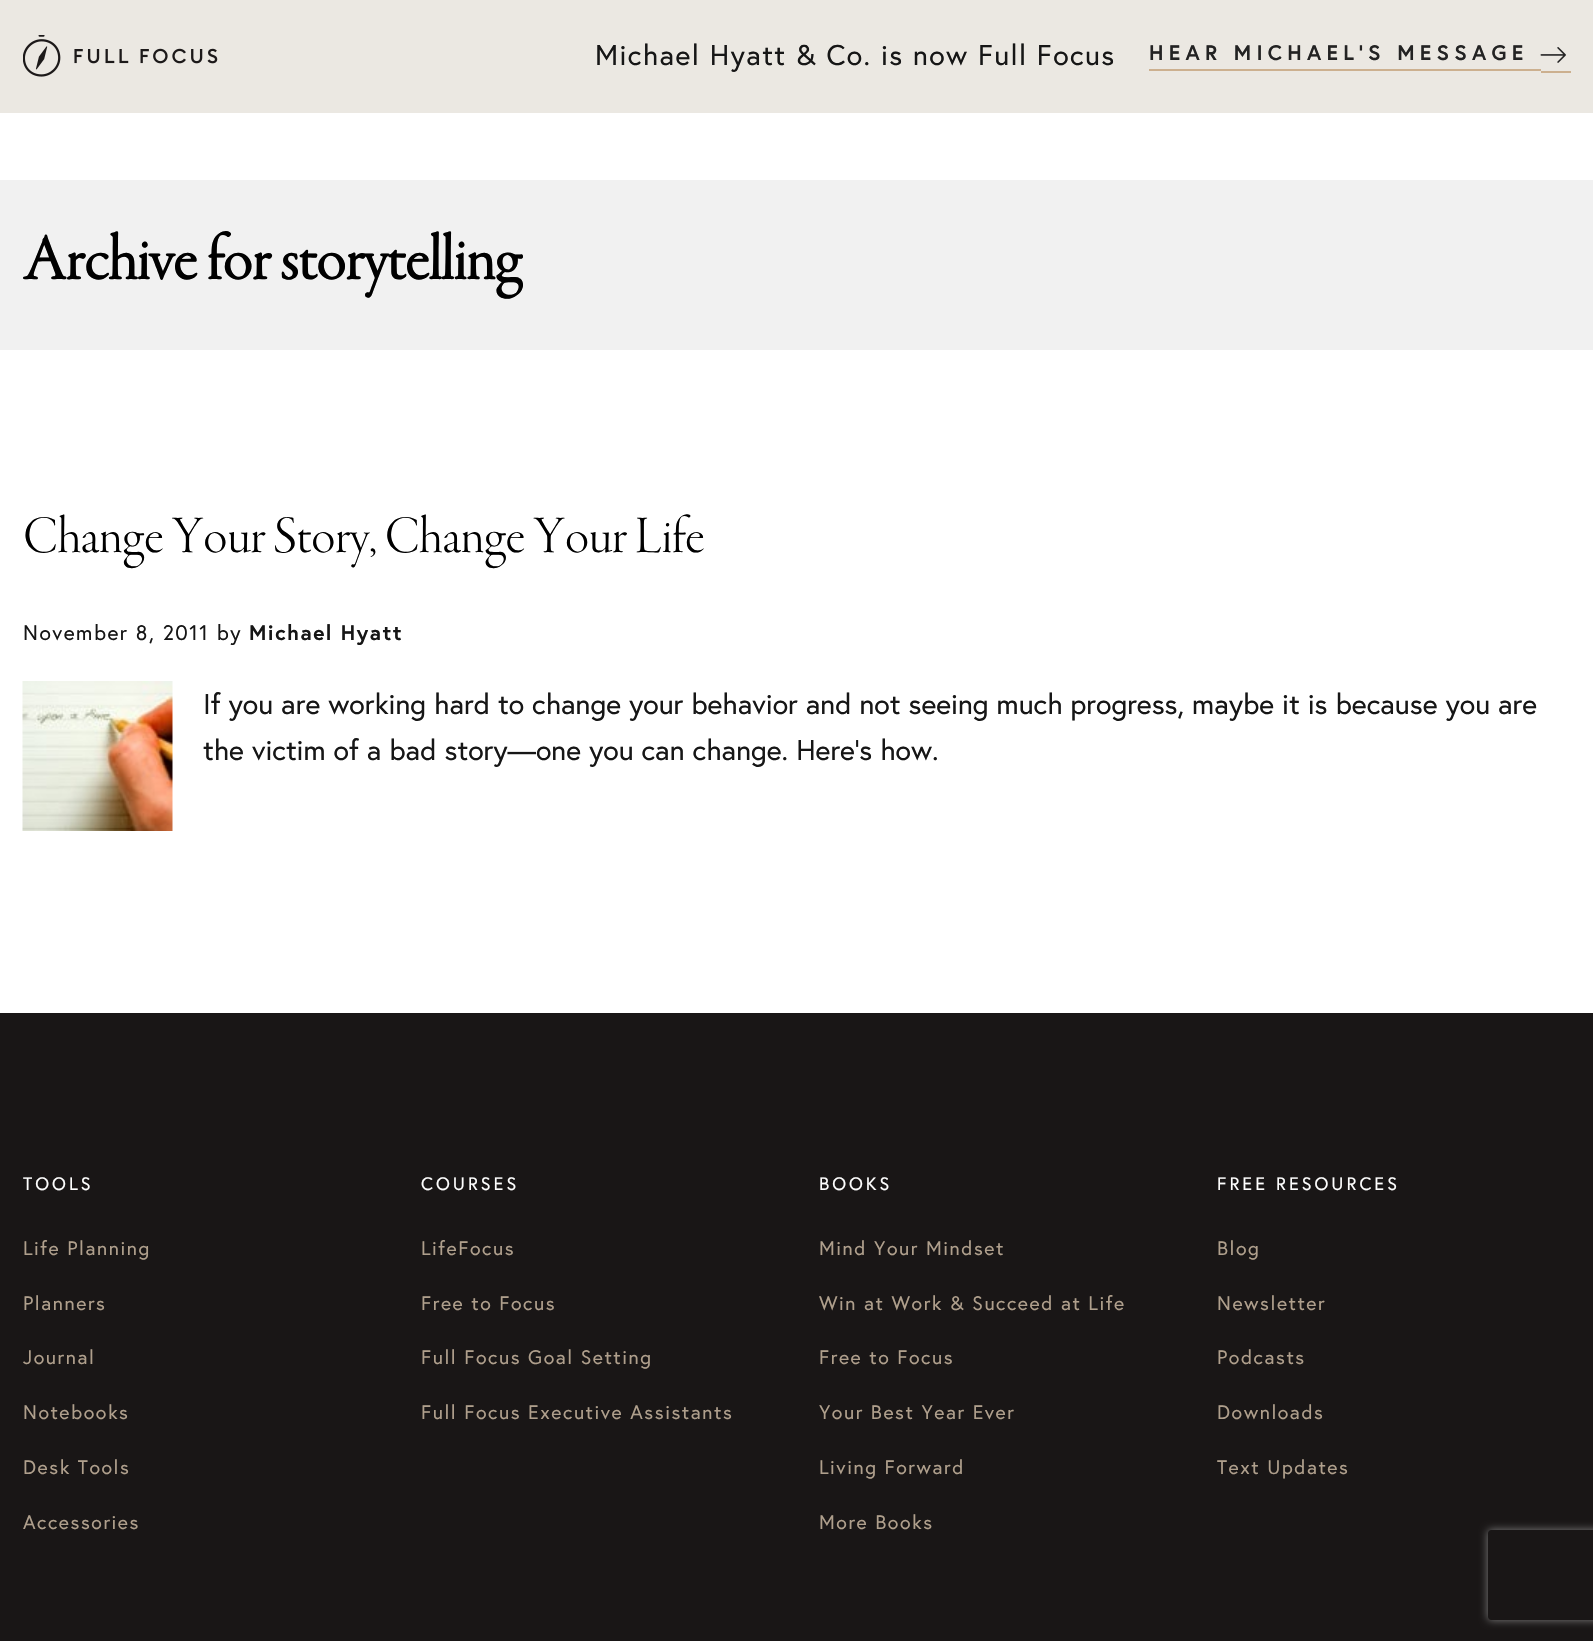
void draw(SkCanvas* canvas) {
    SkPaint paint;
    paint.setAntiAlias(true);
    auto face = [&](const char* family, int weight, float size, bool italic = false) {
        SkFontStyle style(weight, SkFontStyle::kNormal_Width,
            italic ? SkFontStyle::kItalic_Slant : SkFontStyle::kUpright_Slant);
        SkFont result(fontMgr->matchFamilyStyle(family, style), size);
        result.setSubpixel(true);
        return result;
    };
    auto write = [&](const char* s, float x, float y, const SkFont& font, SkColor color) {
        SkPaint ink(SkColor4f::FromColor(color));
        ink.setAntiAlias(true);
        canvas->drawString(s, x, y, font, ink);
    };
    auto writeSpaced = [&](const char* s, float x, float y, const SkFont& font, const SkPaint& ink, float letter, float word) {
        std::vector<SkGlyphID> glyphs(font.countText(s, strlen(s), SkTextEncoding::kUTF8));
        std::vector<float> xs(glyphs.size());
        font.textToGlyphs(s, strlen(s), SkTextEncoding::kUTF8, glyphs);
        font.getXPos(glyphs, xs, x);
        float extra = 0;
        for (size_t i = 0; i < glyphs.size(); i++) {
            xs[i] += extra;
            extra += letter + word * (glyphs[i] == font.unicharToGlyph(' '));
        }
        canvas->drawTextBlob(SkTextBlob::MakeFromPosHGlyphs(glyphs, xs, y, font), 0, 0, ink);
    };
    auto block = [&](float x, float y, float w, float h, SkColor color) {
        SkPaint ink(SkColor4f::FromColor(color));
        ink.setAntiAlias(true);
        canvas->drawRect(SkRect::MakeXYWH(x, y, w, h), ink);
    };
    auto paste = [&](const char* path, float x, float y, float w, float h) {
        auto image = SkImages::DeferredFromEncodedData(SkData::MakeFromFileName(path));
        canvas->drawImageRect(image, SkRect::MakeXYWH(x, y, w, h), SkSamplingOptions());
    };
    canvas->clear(SK_ColorWHITE);
    block(0, 0, 1593, 113, SkColorSetRGB(235, 232, 226));
    paste("pic1.png", 23, 35, 195, 42);
    auto kFont1 = face("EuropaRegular", 400, 28.5f);
    paint.setColor(SkColorSetRGB(22, 22, 22));
    writeSpaced("Michael Hyatt & Co. is now Full Focus", 595, 65, kFont1, paint, 1.4f, 0);
    block(1149, 69, 392, 2, SkColorSetRGB(204, 176, 143));
    block(1541, 71, 30, 2, SkColorSetRGB(204, 176, 143));
    auto kFont2 = face("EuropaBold", 700, 21);
    paint.setColor(SkColorSetRGB(35, 35, 35));
    writeSpaced("HEAR MICHAEL'S MESSAGE", 1149, 60, kFont2, paint, 5.25f, 0);
    paste("pic2.png", 1540, 47, 26, 16);
    block(0, 180, 1593, 170, SkColorSetRGB(241, 241, 241));
    auto kFont3 = face("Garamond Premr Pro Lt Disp", 700, 66);
    write("Archive for storytelling", 23, 279, kFont3, SK_ColorBLACK);
    auto kFont4 = face("Garamond Premr Pro Lt Disp", 300, 54);
    write("Change Your Story, Change Your Life", 23, 552, kFont4, SK_ColorBLACK);
    auto kFont5 = face("EuropaRegular", 400, 21);
    paint.setColor(SkColorSetRGB(22, 22, 22));
    writeSpaced("November 8, 2011 by", 23, 640, kFont5, paint, 1.5f, 0);
    writeSpaced("Michael Hyatt", 249, 640, kFont2, paint, 1.5f, 0);
    paste("pic3.png", 22, 681, 151, 150);
    write("If you are working hard to change your behavior and not seeing much progress, maybe it is because you are", 203, 714, kFont1, SkColorSetRGB(22, 22, 22));
    write("the victim of a bad story—one you can change. Here’s how.", 203, 760, kFont1, SkColorSetRGB(22, 22, 22));
    block(0, 1013, 1593, 628, SkColorSetRGB(25, 22, 22));
    auto kFont6 = face("EuropaRegular", 400, 18);
    paint.setColor(SK_ColorWHITE);
    writeSpaced("TOOLS", 23, 1190, kFont6, paint, 3, 0);
    auto kFont7 = face("EuropaRegular", 400, 19.5f);
    paint.setColor(SkColorSetRGB(175, 159, 140));
    writeSpaced("Life Planning", 23, 1255, kFont7, paint, 1.55f, 0);
    writeSpaced("Planners", 23, 1310, kFont7, paint, 1.55f, 0);
    writeSpaced("Journal", 23, 1364, kFont7, paint, 1.55f, 0);
    writeSpaced("Notebooks", 23, 1419, kFont7, paint, 1.55f, 0);
    writeSpaced("Desk Tools", 23, 1474, kFont7, paint, 1.55f, 0);
    writeSpaced("Accessories", 23, 1529, kFont7, paint, 1.55f, 0);
    paint.setColor(SK_ColorWHITE);
    writeSpaced("COURSES", 421, 1190, kFont6, paint, 3, 0);
    paint.setColor(SkColorSetRGB(175, 159, 140));
    writeSpaced("LifeFocus", 421, 1255, kFont7, paint, 1.55f, 0);
    writeSpaced("Free to Focus", 421, 1310, kFont7, paint, 1.55f, 0);
    writeSpaced("Full Focus Goal Setting", 421, 1364, kFont7, paint, 1.55f, 0);
    writeSpaced("Full Focus Executive Assistants", 421, 1419, kFont7, paint, 1.55f, 0);
    paint.setColor(SK_ColorWHITE);
    writeSpaced("BOOKS", 819, 1190, kFont6, paint, 3, 0);
    paint.setColor(SkColorSetRGB(175, 159, 140));
    writeSpaced("Mind Your Mindset", 819, 1255, kFont7, paint, 1.55f, 0);
    writeSpaced("Win at Work & Succeed at Life", 819, 1310, kFont7, paint, 1.55f, 0);
    writeSpaced("Free to Focus", 819, 1364, kFont7, paint, 1.55f, 0);
    writeSpaced("Your Best Year Ever", 819, 1419, kFont7, paint, 1.55f, 0);
    writeSpaced("Living Forward", 819, 1474, kFont7, paint, 1.55f, 0);
    writeSpaced("More Books", 819, 1529, kFont7, paint, 1.55f, 0);
    paint.setColor(SK_ColorWHITE);
    writeSpaced("FREE RESOURCES", 1217, 1190, kFont6, paint, 3, 0);
    paint.setColor(SkColorSetRGB(175, 159, 140));
    writeSpaced("Blog", 1217, 1255, kFont7, paint, 1.55f, 0);
    writeSpaced("Newsletter", 1217, 1310, kFont7, paint, 1.55f, 0);
    writeSpaced("Podcasts", 1217, 1364, kFont7, paint, 1.55f, 0);
    writeSpaced("Downloads", 1217, 1419, kFont7, paint, 1.55f, 0);
    writeSpaced("Text Updates", 1217, 1474, kFont7, paint, 1.55f, 0);
    canvas->save();
    canvas->clipPath(SkPathBuilder(SkPathFillType::kEvenOdd).moveTo(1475, 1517).lineTo(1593, 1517).lineTo(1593, 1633).lineTo(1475, 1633).close().moveTo(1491, 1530).lineTo(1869, 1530).cubicTo(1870.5f, 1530, 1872, 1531.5f, 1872, 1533).lineTo(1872, 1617).cubicTo(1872, 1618.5f, 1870.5f, 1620, 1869, 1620).lineTo(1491, 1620).cubicTo(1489.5f, 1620, 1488, 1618.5f, 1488, 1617).lineTo(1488, 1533).cubicTo(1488, 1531.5f, 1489.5f, 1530, 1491, 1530).close().detach(), true);
    paint.setColor(SkColorSetRGB(128, 128, 128));
    paint.setMaskFilter(SkMaskFilter::MakeBlur(kNormal_SkBlurStyle, 4));
    canvas->drawRoundRect(SkRect::MakeXYWH(1488, 1530, 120, 90), 3, 3, paint);
    paint.setMaskFilter(nullptr);
    canvas->restore();
}
